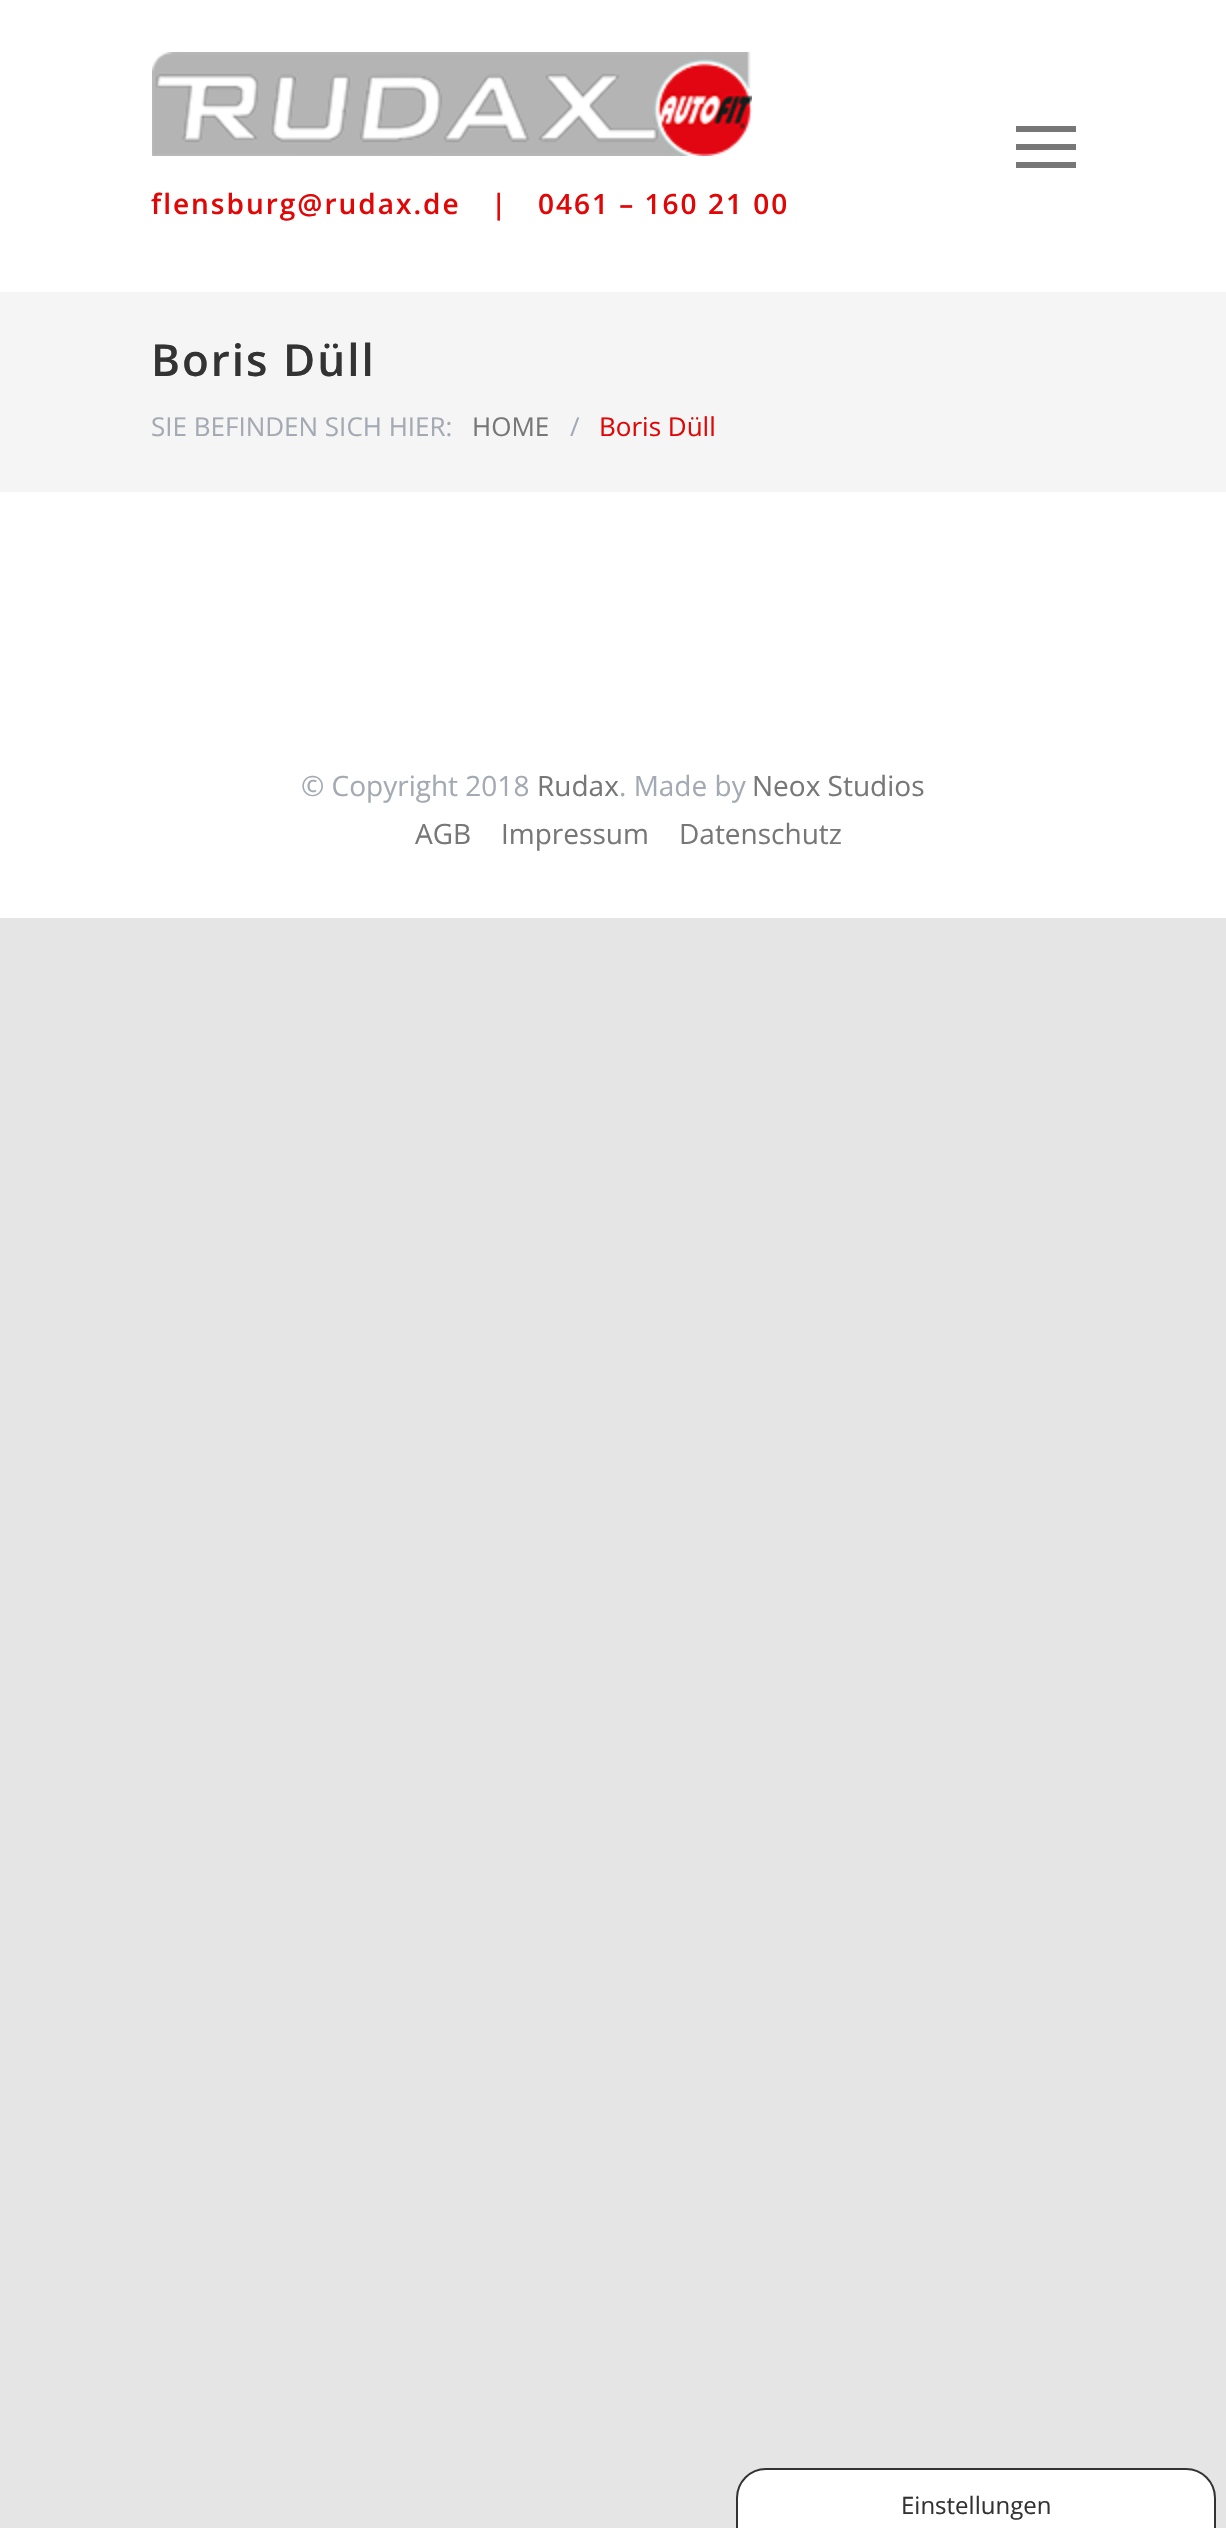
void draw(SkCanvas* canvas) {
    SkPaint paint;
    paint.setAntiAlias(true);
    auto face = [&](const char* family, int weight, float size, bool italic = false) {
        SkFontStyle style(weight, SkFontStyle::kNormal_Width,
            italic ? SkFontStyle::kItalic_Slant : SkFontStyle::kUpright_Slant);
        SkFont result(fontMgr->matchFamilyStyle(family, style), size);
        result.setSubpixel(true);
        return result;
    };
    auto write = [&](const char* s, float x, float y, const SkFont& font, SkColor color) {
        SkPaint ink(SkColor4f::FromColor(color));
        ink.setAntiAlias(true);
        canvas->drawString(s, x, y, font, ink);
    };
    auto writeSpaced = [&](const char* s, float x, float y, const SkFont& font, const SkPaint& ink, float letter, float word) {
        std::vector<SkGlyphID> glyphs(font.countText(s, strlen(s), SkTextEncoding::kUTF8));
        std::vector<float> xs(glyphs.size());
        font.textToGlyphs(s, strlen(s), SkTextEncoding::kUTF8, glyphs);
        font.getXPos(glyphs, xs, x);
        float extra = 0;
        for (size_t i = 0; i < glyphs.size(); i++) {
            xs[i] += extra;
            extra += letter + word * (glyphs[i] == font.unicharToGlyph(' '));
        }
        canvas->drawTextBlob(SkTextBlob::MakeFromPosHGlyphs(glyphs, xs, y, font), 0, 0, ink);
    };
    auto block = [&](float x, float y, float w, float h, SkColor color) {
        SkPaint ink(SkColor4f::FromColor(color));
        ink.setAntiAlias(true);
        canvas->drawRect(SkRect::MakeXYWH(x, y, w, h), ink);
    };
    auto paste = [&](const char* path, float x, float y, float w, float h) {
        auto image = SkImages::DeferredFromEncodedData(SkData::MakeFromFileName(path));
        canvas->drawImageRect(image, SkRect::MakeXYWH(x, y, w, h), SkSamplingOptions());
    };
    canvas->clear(SkColorSetRGB(229, 229, 229));
    block(0, 0, 1226, 918, SK_ColorWHITE);
    block(1016, 126, 60, 6, SkColorSetRGB(119, 119, 119));
    block(1016, 144, 60, 6, SkColorSetRGB(119, 119, 119));
    block(1016, 162, 60, 6, SkColorSetRGB(119, 119, 119));
    paste("pic1.png", 152, 52, 600, 104);
    auto kFont1 = face("Open Sans", 600, 28);
    paint.setColor(SkColorSetRGB(225, 7, 7));
    writeSpaced("flensburg@rudax.de", 151, 214, kFont1, paint, 2, 0);
    writeSpaced("|", 491, 214, kFont1, paint, 2, 0);
    writeSpaced("0461 – 160 21 00", 538, 214, kFont1, paint, 2, 0);
    block(0, 292, 1226, 200, SkColorSetRGB(245, 245, 245));
    auto kFont2 = face("Open Sans", 600, 44);
    paint.setColor(SkColorSetRGB(51, 51, 51));
    writeSpaced("Boris Düll", 151, 376, kFont2, paint, 2, 0);
    auto kFont3 = face("Open Sans", 400, 26);
    write("SIE BEFINDEN SICH HIER:", 151, 436, kFont3, SkColorSetRGB(164, 170, 179));
    write("HOME", 472, 436, kFont3, SkColorSetRGB(119, 119, 119));
    write("/", 570, 436, kFont3, SkColorSetRGB(164, 170, 179));
    write("Boris Düll", 599, 436, kFont3, SkColorSetRGB(225, 7, 7));
    auto kFont4 = face("Open Sans", 400, 28);
    write("© Copyright 2018", 301, 796, kFont4, SkColorSetRGB(164, 170, 179));
    write("Rudax", 537, 796, kFont4, SkColorSetRGB(119, 119, 119));
    write(". Made by", 619, 796, kFont4, SkColorSetRGB(164, 170, 179));
    write("Neox Studios", 752, 796, kFont4, SkColorSetRGB(119, 119, 119));
    write("AGB", 415, 844, kFont4, SkColorSetRGB(119, 119, 119));
    write("Impressum", 501, 844, kFont4, SkColorSetRGB(119, 119, 119));
    write("Datenschutz", 679, 844, kFont4, SkColorSetRGB(119, 119, 119));
    paint.setColor(SK_ColorWHITE);
    canvas->drawRoundRect(SkRect::MakeXYWH(737, 2469, 478, 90), 29, 29, paint);
    paint.setStyle(SkPaint::kStroke_Style);
    paint.setStrokeWidth(2);
    paint.setColor(SkColorSetRGB(51, 51, 51));
    canvas->drawRoundRect(SkRect::MakeXYWH(737, 2469, 478, 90), 29, 29, paint);
    auto kFont5 = face("Open Sans", 400, 24);
    write("Einstellungen", 901, 2514, kFont5, SkColorSetRGB(51, 51, 51));
}
